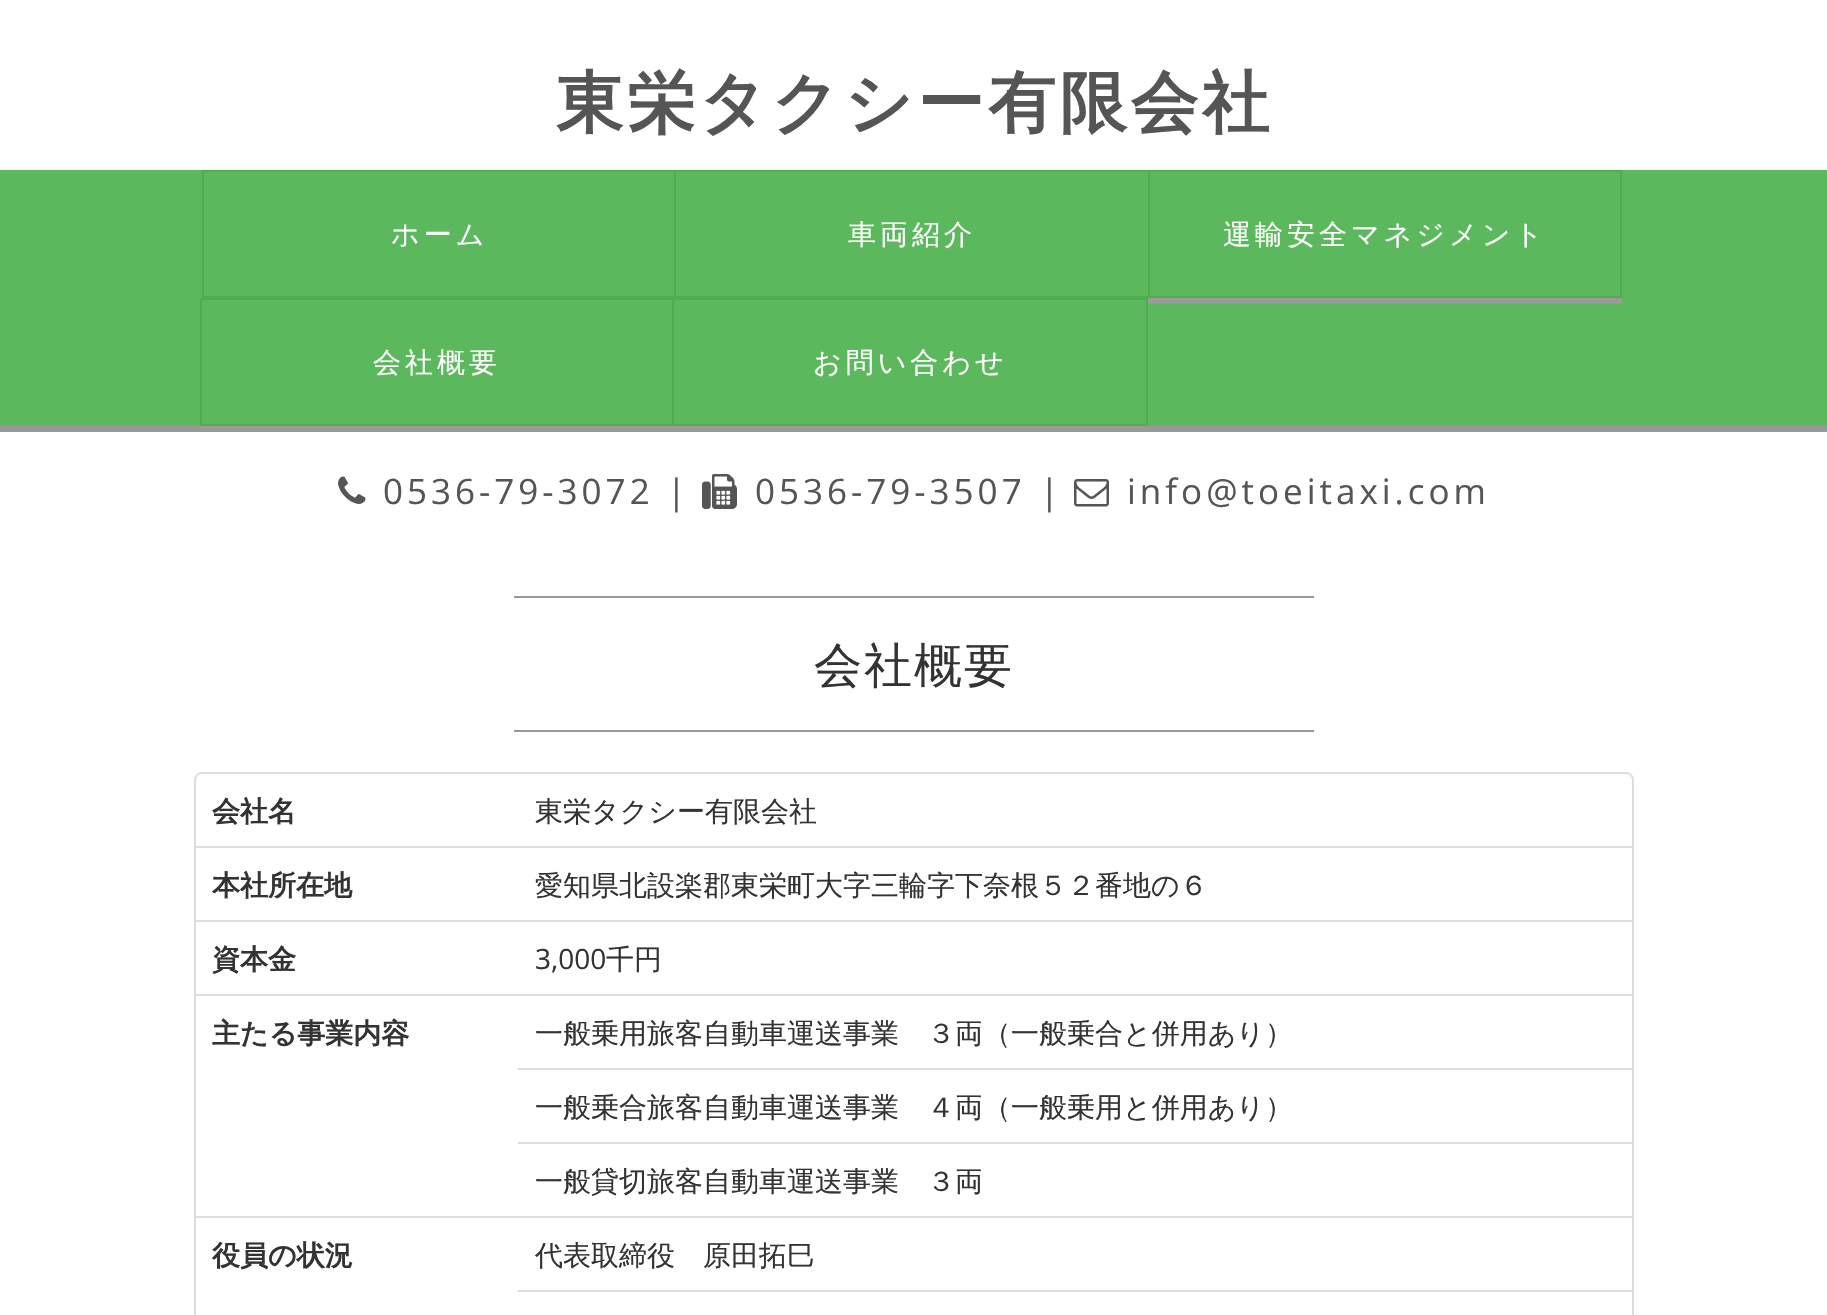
void draw(SkCanvas* canvas) {
    SkPaint paint;
    paint.setAntiAlias(true);
    auto face = [&](const char* family, int weight, float size, bool italic = false) {
        SkFontStyle style(weight, SkFontStyle::kNormal_Width,
            italic ? SkFontStyle::kItalic_Slant : SkFontStyle::kUpright_Slant);
        SkFont result(fontMgr->matchFamilyStyle(family, style), size);
        result.setSubpixel(true);
        return result;
    };
    auto write = [&](const char* s, float x, float y, const SkFont& font, SkColor color) {
        SkPaint ink(SkColor4f::FromColor(color));
        ink.setAntiAlias(true);
        canvas->drawString(s, x, y, font, ink);
    };
    auto writeSpaced = [&](const char* s, float x, float y, const SkFont& font, const SkPaint& ink, float letter, float word) {
        std::vector<SkGlyphID> glyphs(font.countText(s, strlen(s), SkTextEncoding::kUTF8));
        std::vector<float> xs(glyphs.size());
        font.textToGlyphs(s, strlen(s), SkTextEncoding::kUTF8, glyphs);
        font.getXPos(glyphs, xs, x);
        float extra = 0;
        for (size_t i = 0; i < glyphs.size(); i++) {
            xs[i] += extra;
            extra += letter + word * (glyphs[i] == font.unicharToGlyph(' '));
        }
        canvas->drawTextBlob(SkTextBlob::MakeFromPosHGlyphs(glyphs, xs, y, font), 0, 0, ink);
    };
    auto block = [&](float x, float y, float w, float h, SkColor color) {
        SkPaint ink(SkColor4f::FromColor(color));
        ink.setAntiAlias(true);
        canvas->drawRect(SkRect::MakeXYWH(x, y, w, h), ink);
    };
    auto paste = [&](const char* path, float x, float y, float w, float h) {
        auto image = SkImages::DeferredFromEncodedData(SkData::MakeFromFileName(path));
        canvas->drawImageRect(image, SkRect::MakeXYWH(x, y, w, h), SkSamplingOptions());
    };
    canvas->clear(SK_ColorWHITE);
    auto kFont1 = face("WenQuanYi Zen Hei", 700, 67.25f);
    paint.setColor(SkColorSetRGB(85, 85, 85));
    writeSpaced("東栄タクシー有限会社", 556, 126, kFont1, paint, 4, 0);
    block(0, 426, 1827, 6, SkColorSetRGB(153, 153, 153));
    block(0, 170, 1827, 256, SkColorSetRGB(92, 184, 92));
    paint.setStyle(SkPaint::kStroke_Style);
    paint.setStrokeWidth(2);
    paint.setColor(SkColorSetRGB(76, 174, 76));
    canvas->drawRect(SkRect::MakeXYWH(203, 171, 472, 126), paint);
    auto kFont2 = face("WenQuanYi Zen Hei", 500, 28);
    paint.setStyle(SkPaint::kFill_Style);
    paint.setColor(SK_ColorWHITE);
    writeSpaced("ホーム", 391, 244, kFont2, paint, 4, 0);
    paint.setStyle(SkPaint::kStroke_Style);
    paint.setColor(SkColorSetRGB(76, 174, 76));
    canvas->drawRect(SkRect::MakeXYWH(675, 171, 474, 126), paint);
    paint.setStyle(SkPaint::kFill_Style);
    paint.setColor(SK_ColorWHITE);
    writeSpaced("車両紹介", 848, 244, kFont2, paint, 4, 0);
    block(1148, 298, 474, 6, SkColorSetRGB(153, 153, 153));
    paint.setStyle(SkPaint::kStroke_Style);
    paint.setColor(SkColorSetRGB(76, 174, 76));
    canvas->drawRect(SkRect::MakeXYWH(1149, 171, 472, 126), paint);
    paint.setStyle(SkPaint::kFill_Style);
    paint.setColor(SK_ColorWHITE);
    writeSpaced("運輸安全マネジメント", 1223, 244, kFont2, paint, 4, 0);
    paint.setStyle(SkPaint::kStroke_Style);
    paint.setColor(SkColorSetRGB(76, 174, 76));
    canvas->drawRect(SkRect::MakeXYWH(201, 299, 472, 126), paint);
    paint.setStyle(SkPaint::kFill_Style);
    paint.setColor(SK_ColorWHITE);
    writeSpaced("会社概要", 373, 372, kFont2, paint, 4, 0);
    paint.setStyle(SkPaint::kStroke_Style);
    paint.setColor(SkColorSetRGB(76, 174, 76));
    canvas->drawRect(SkRect::MakeXYWH(673, 299, 474, 126), paint);
    paint.setStyle(SkPaint::kFill_Style);
    paint.setColor(SK_ColorWHITE);
    writeSpaced("お問い合わせ", 813, 372, kFont2, paint, 4, 0);
    paste("pic1.png", 338, 476, 28, 28);
    auto kFont3 = face("Open Sans", 400, 35);
    paint.setColor(SkColorSetRGB(85, 85, 85));
    writeSpaced("0536-79-3072", 383, 504, kFont3, paint, 4, 0);
    auto kFont4 = face("Open Sans", 400, 35, true);
    writeSpaced("|", 666, 504, kFont4, paint, 4, 0);
    paste("pic2.png", 702, 474, 35, 35);
    writeSpaced("0536-79-3507", 755, 504, kFont3, paint, 4, 0);
    writeSpaced("|", 1039, 504, kFont4, paint, 4, 0);
    paste("pic3.png", 1074, 479, 35, 28);
    writeSpaced("info@toeitaxi.com", 1127, 504, kFont3, paint, 4, 0);
    block(514, 596, 800, 2, SkColorSetRGB(153, 153, 153));
    auto kFont5 = face("WenQuanYi Zen Hei", 500, 48);
    paint.setColor(SkColorSetRGB(51, 51, 51));
    writeSpaced("会社概要", 814, 682, kFont5, paint, 2, 0);
    block(514, 730, 800, 2, SkColorSetRGB(153, 153, 153));
    paint.setStyle(SkPaint::kStroke_Style);
    paint.setColor(SkColorSetRGB(221, 221, 221));
    canvas->drawRoundRect(SkRect::MakeXYWH(195, 773, 1438, 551), 7, 7, paint);
    auto kFont6 = face("WenQuanYi Zen Hei", 700, 28);
    write("会社名", 212, 821, kFont6, SkColorSetRGB(51, 51, 51));
    write("東栄タクシー有限会社", 535, 821, kFont2, SkColorSetRGB(51, 51, 51));
    write("本社所在地", 212, 895, kFont6, SkColorSetRGB(51, 51, 51));
    block(196, 846, 1438, 2, SkColorSetRGB(221, 221, 221));
    write("愛知県北設楽郡東栄町大字三輪字下奈根５２番地の６", 535, 895, kFont2, SkColorSetRGB(51, 51, 51));
    write("資本金", 212, 969, kFont6, SkColorSetRGB(51, 51, 51));
    block(196, 920, 1438, 2, SkColorSetRGB(221, 221, 221));
    auto kFont7 = face("Open Sans", 400, 28);
    write("3,000", 535, 969, kFont7, SkColorSetRGB(51, 51, 51));
    write("千円", 606, 969, kFont2, SkColorSetRGB(51, 51, 51));
    write("主たる事業内容", 212, 1043, kFont6, SkColorSetRGB(51, 51, 51));
    block(196, 994, 1438, 2, SkColorSetRGB(221, 221, 221));
    write("一般乗用旅客自動車運送事業　３両（一般乗合と併用あり）", 535, 1043, kFont2, SkColorSetRGB(51, 51, 51));
    block(518, 1068, 1116, 2, SkColorSetRGB(221, 221, 221));
    write("一般乗合旅客自動車運送事業　４両（一般乗用と併用あり）", 535, 1117, kFont2, SkColorSetRGB(51, 51, 51));
    block(518, 1142, 1116, 2, SkColorSetRGB(221, 221, 221));
    write("一般貸切旅客自動車運送事業　３両", 535, 1191, kFont2, SkColorSetRGB(51, 51, 51));
    write("役員の状況", 212, 1265, kFont6, SkColorSetRGB(51, 51, 51));
    block(196, 1216, 1438, 2, SkColorSetRGB(221, 221, 221));
    write("代表取締役　原田拓巳", 535, 1265, kFont2, SkColorSetRGB(51, 51, 51));
    block(518, 1290, 1116, 2, SkColorSetRGB(221, 221, 221));
}
